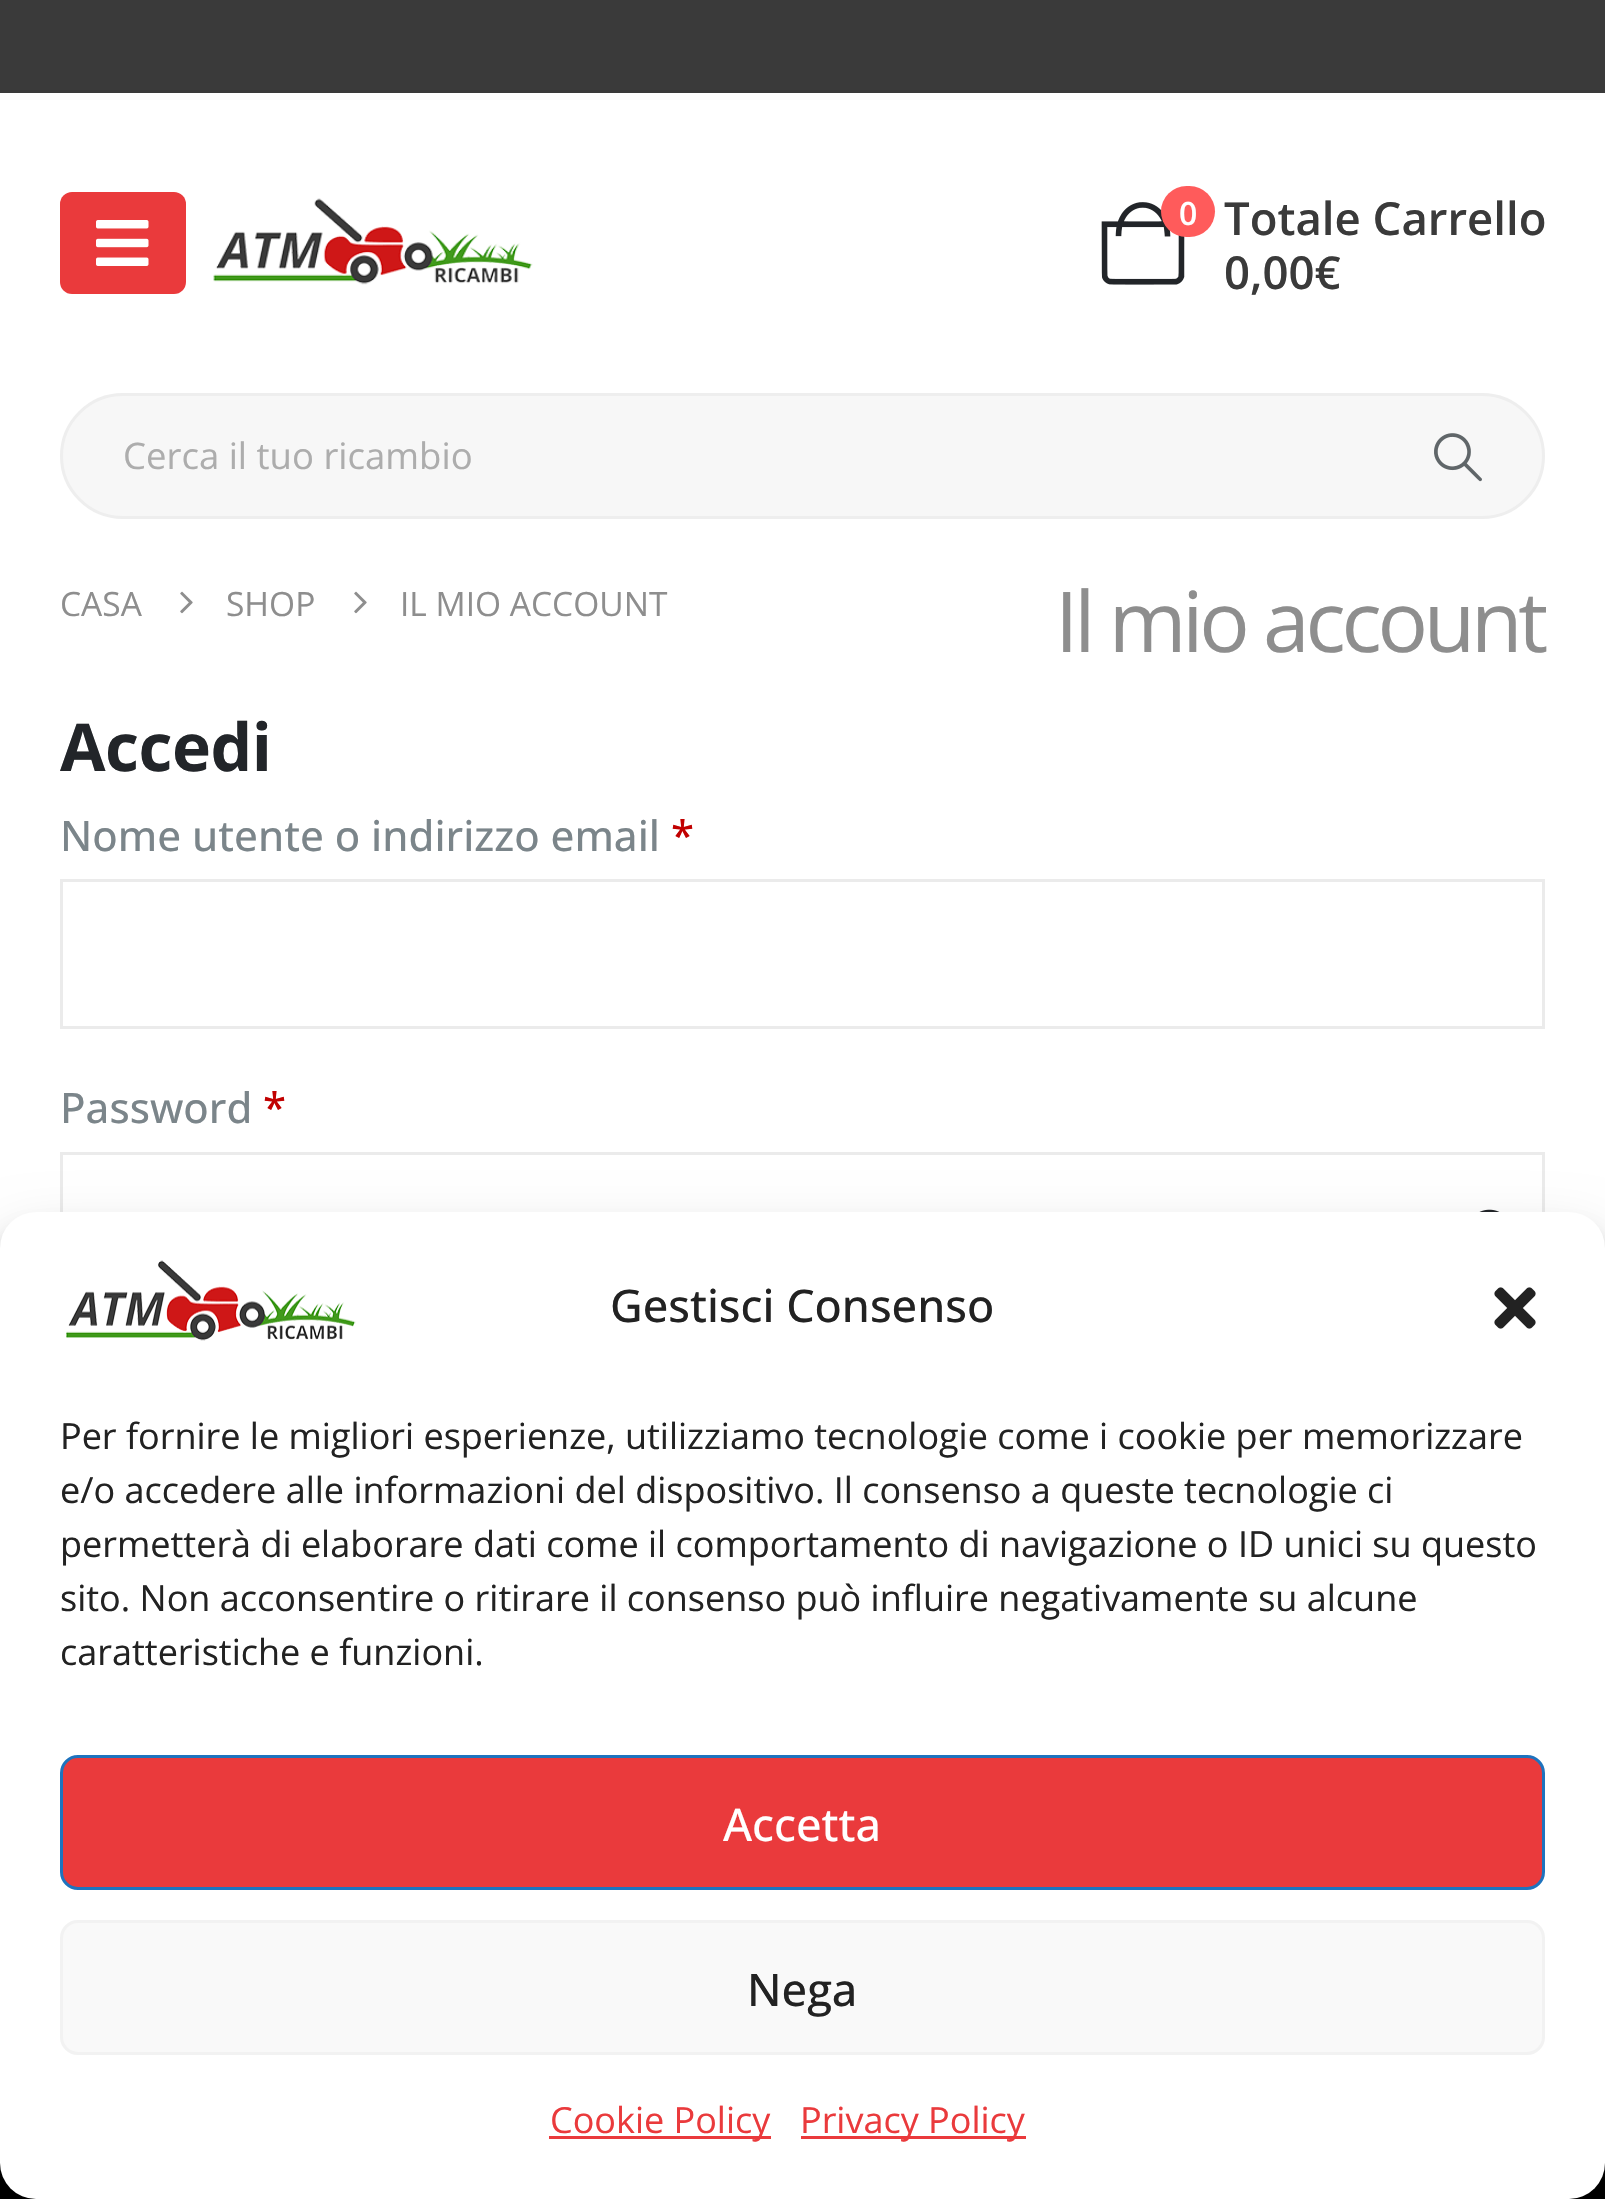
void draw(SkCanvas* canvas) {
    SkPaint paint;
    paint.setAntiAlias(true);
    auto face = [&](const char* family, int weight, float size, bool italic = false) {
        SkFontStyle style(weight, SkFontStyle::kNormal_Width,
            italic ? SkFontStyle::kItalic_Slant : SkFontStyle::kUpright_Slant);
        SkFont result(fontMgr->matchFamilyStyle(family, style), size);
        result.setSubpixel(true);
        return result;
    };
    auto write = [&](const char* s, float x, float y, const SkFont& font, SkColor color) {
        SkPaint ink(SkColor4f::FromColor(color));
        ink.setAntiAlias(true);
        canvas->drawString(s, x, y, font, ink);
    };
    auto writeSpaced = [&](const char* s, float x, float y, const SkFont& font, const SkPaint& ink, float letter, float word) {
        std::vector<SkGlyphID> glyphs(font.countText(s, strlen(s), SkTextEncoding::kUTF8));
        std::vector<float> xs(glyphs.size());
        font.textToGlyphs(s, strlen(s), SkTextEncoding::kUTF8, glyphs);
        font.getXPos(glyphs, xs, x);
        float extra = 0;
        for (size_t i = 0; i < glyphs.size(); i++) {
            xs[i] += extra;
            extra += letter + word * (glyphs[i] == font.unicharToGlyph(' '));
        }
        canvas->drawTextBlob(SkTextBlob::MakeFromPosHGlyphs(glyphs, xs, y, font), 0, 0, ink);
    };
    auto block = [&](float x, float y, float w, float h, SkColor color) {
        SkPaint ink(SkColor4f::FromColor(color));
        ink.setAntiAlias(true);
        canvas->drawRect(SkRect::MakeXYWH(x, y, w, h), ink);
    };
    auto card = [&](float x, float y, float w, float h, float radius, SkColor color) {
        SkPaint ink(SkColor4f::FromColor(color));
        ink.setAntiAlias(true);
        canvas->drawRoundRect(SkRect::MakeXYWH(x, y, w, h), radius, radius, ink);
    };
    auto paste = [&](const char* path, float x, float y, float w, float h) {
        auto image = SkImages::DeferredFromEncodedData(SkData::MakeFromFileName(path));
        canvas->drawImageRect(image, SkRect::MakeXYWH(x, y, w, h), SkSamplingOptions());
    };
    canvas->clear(SK_ColorWHITE);
    block(0, 0, 1605, 93, SkColorSetRGB(58, 58, 58));
    card(60, 192, 126, 102, 12, SkColorSetRGB(234, 58, 60));
    paste("pic1.png", 96, 220, 53, 46);
    paste("pic2.png", 213, 198, 320, 87);
    paste("pic3.png", 1101, 202, 84, 83);
    card(1161, 186, 54, 51, 25.5f, SkColorSetRGB(255, 91, 91));
    auto kFont1 = face("Open Sans", 600, 32);
    write("0", 1179, 225, kFont1, SK_ColorWHITE);
    auto kFont2 = face("Open Sans", 600, 45.5f);
    write("Totale Carrello", 1224, 235, kFont2, SkColorSetRGB(58, 58, 58));
    write("0,00€", 1224, 289, kFont2, SkColorSetRGB(58, 58, 58));
    paint.setColor(SkColorSetRGB(247, 247, 247));
    canvas->drawRoundRect(SkRect::MakeXYWH(61.5f, 394.5f, 1482, 123), 61.5f, 61.5f, paint);
    paint.setStyle(SkPaint::kStroke_Style);
    paint.setStrokeWidth(3);
    paint.setColor(SkColorSetRGB(238, 238, 238));
    canvas->drawRoundRect(SkRect::MakeXYWH(61.5f, 394.5f, 1482, 123), 61.5f, 61.5f, paint);
    auto kFont3 = face("Open Sans", 400, 36.5f);
    write("Cerca il tuo ricambio", 123, 469, kFont3, SkColorSetRGB(173, 173, 173));
    paste("pic4.png", 1434, 433, 48, 49);
    auto kFont4 = face("Open Sans", 400, 33.5f);
    write("CASA", 60, 616, kFont4, SkColorSetRGB(142, 142, 142));
    paste("pic5.png", 180, 591, 13, 23);
    write("SHOP", 226, 616, kFont4, SkColorSetRGB(142, 142, 142));
    paste("pic5.png", 354, 591, 13, 23);
    write("IL MIO ACCOUNT", 400, 616, kFont4, SkColorSetRGB(142, 142, 142));
    auto kFont5 = face("Open Sans", 400, 84);
    paint.setStyle(SkPaint::kFill_Style);
    paint.setColor(SkColorSetRGB(142, 142, 142));
    writeSpaced("Il mio account", 1055, 652, kFont5, paint, -4.25f, 0);
    auto kFont6 = face("Open Sans", 700, 66);
    paint.setColor(SkColorSetRGB(34, 37, 41));
    writeSpaced("Accedi", 60, 771, kFont6, paint, -0.5f, 0);
    auto kFont7 = face("Open Sans", 500, 42);
    write("Nome utente o indirizzo email", 60, 851, kFont7, SkColorSetRGB(123, 133, 138));
    write("*", 671, 851, kFont7, SkColorSetRGB(193, 0, 0));
    paint.setStyle(SkPaint::kStroke_Style);
    paint.setColor(SkColorSetRGB(235, 235, 235));
    canvas->drawRect(SkRect::MakeXYWH(61.5f, 880.5f, 1482, 147), paint);
    write("Password", 60, 1123, kFont7, SkColorSetRGB(123, 133, 138));
    write("*", 263, 1123, kFont7, SkColorSetRGB(193, 0, 0));
    canvas->drawRect(SkRect::MakeXYWH(61.5f, 1153.5f, 1482, 147), paint);
    paste("pic6.png", 1479, 1209, 21, 3);
    block(0, 2163, 1605, 36, SK_ColorBLACK);
    paint.setStyle(SkPaint::kFill_Style);
    paint.setColor(SkColorSetARGB(59, 0, 0, 0));
    paint.setMaskFilter(SkMaskFilter::MakeBlur(kNormal_SkBlurStyle, 9));
    canvas->drawRoundRect(SkRect::MakeXYWH(0, 1230, 1605, 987), 36, 36, paint);
    paint.setMaskFilter(nullptr);
    paint.setColor(SkColorSetARGB(48, 0, 0, 0));
    paint.setMaskFilter(SkMaskFilter::MakeBlur(kNormal_SkBlurStyle, 30));
    canvas->drawRoundRect(SkRect::MakeXYWH(0, 1242, 1605, 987), 36, 36, paint);
    paint.setMaskFilter(nullptr);
    card(0, 1212, 1605, 987, 36, SK_ColorWHITE);
    paste("pic7.png", 66, 1260, 290, 81);
    auto kFont8 = face("Open Sans", 500, 45);
    write("Gestisci Consenso", 610, 1322, kFont8, SkColorSetRGB(34, 34, 34));
    paste("pic8.png", 1494, 1287, 42, 42);
    auto kFont9 = face("Open Sans", 400, 36);
    write("Per fornire le migliori esperienze, utilizziamo tecnologie come i cookie per memorizzare", 60, 1449, kFont9, SkColorSetRGB(34, 34, 34));
    write("e/o accedere alle informazioni del dispositivo. Il consenso a queste tecnologie ci", 60, 1503, kFont9, SkColorSetRGB(34, 34, 34));
    write("permetterà di elaborare dati come il comportamento di navigazione o ID unici su questo", 60, 1557, kFont9, SkColorSetRGB(34, 34, 34));
    write("sito. Non acconsentire o ritirare il consenso può influire negativamente su alcune", 60, 1611, kFont9, SkColorSetRGB(34, 34, 34));
    write("caratteristiche e funzioni.", 60, 1665, kFont9, SkColorSetRGB(34, 34, 34));
    paint.setColor(SkColorSetRGB(234, 58, 60));
    canvas->drawRoundRect(SkRect::MakeXYWH(61.5f, 1756.5f, 1482, 132), 16.5f, 16.5f, paint);
    paint.setStyle(SkPaint::kStroke_Style);
    paint.setColor(SkColorSetRGB(30, 115, 190));
    canvas->drawRoundRect(SkRect::MakeXYWH(61.5f, 1756.5f, 1482, 132), 16.5f, 16.5f, paint);
    write("Accetta", 723, 1841, kFont8, SK_ColorWHITE);
    paint.setStyle(SkPaint::kFill_Style);
    paint.setColor(SkColorSetRGB(249, 249, 249));
    canvas->drawRoundRect(SkRect::MakeXYWH(61.5f, 1921.5f, 1482, 132), 16.5f, 16.5f, paint);
    paint.setStyle(SkPaint::kStroke_Style);
    paint.setColor(SkColorSetRGB(242, 242, 242));
    canvas->drawRoundRect(SkRect::MakeXYWH(61.5f, 1921.5f, 1482, 132), 16.5f, 16.5f, paint);
    write("Nega", 747, 2006, kFont8, SkColorSetRGB(34, 34, 34));
    block(549, 2136, 222, 3, SkColorSetRGB(234, 58, 60));
    write("Cookie Policy", 550, 2133, kFont9, SkColorSetRGB(234, 58, 60));
    block(801, 2136, 225, 3, SkColorSetRGB(234, 58, 60));
    write("Privacy Policy", 800, 2133, kFont9, SkColorSetRGB(234, 58, 60));
}
